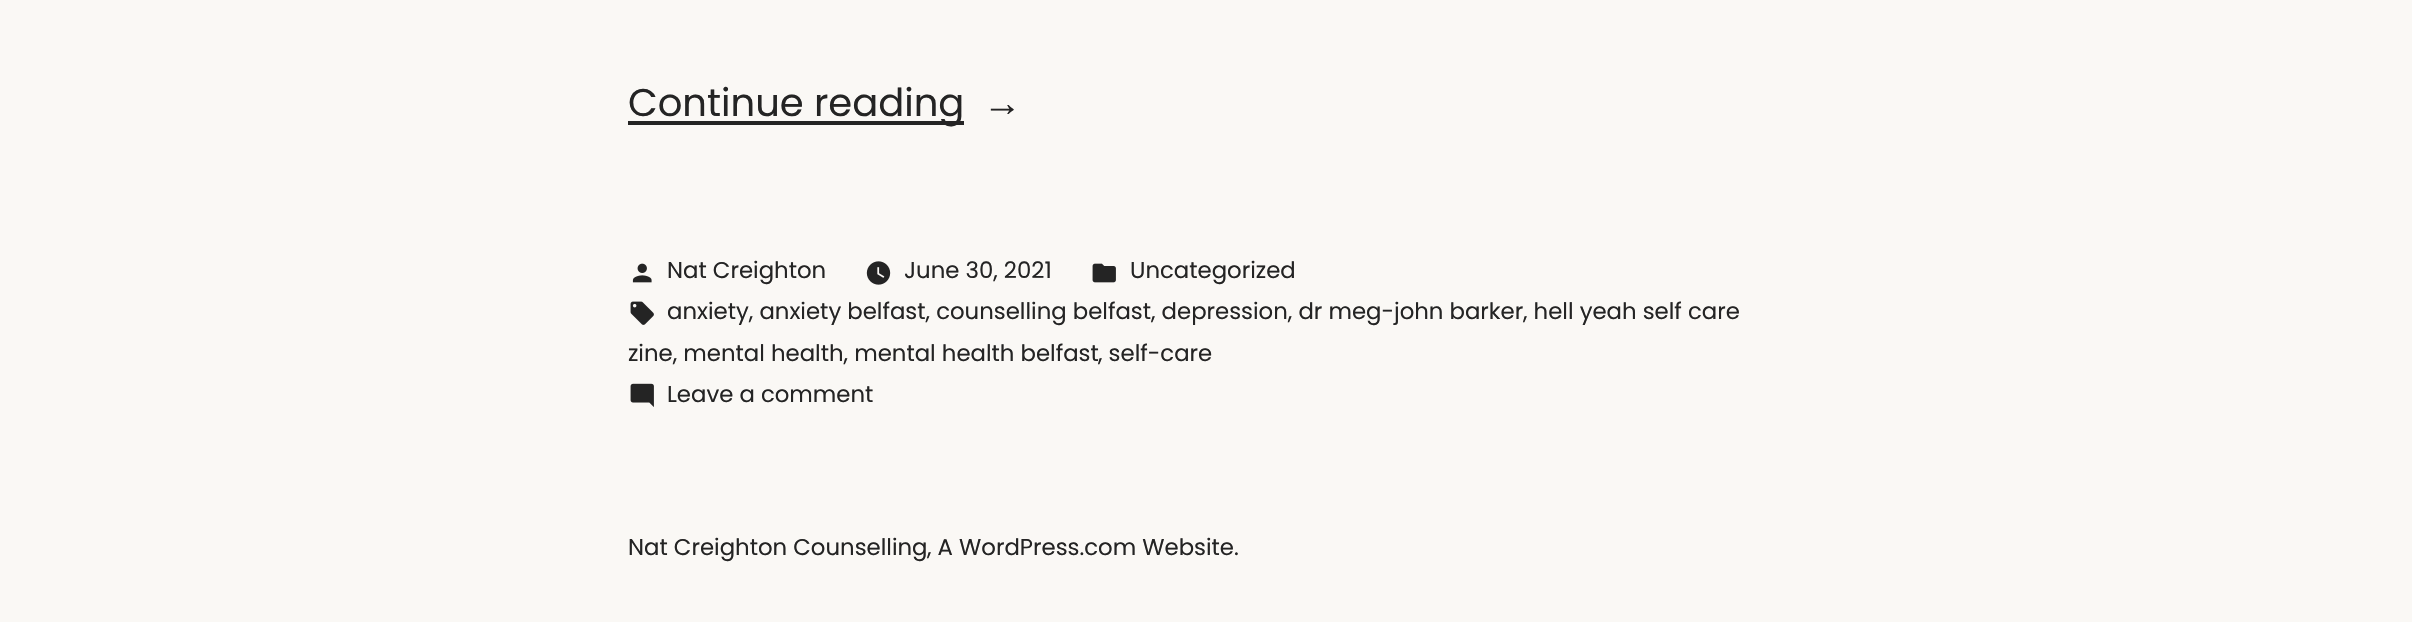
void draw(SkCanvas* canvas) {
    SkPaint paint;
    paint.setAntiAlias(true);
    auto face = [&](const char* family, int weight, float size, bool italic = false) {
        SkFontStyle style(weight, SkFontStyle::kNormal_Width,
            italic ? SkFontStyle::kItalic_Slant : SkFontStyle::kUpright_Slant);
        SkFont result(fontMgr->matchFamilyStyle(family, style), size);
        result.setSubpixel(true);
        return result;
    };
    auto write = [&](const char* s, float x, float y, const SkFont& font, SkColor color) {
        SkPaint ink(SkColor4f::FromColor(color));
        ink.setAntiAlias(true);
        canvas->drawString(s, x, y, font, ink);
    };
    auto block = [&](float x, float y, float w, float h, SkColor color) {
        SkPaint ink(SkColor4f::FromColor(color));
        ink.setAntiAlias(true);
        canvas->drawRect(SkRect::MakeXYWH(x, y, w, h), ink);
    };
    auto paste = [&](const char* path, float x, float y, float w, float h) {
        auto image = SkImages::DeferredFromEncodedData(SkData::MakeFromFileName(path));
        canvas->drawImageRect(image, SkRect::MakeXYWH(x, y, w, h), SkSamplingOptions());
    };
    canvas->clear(SkColorSetRGB(250, 248, 245));
    block(628, 121, 336, 4, SkColorSetRGB(36, 36, 36));
    auto kFont1 = face("Poppins", 400, 38.5f);
    write("Continue reading", 628, 116, kFont1, SkColorSetRGB(36, 36, 36));
    auto kFont2 = face("Liberation Sans", 400, 38.5f);
    write("→", 983, 116, kFont2, SkColorSetRGB(36, 36, 36));
    paste("pic1.png", 632, 263, 20, 20);
    auto kFont3 = face("Poppins", 400, 22.8f);
    write("Nat Creighton", 667, 278, kFont3, SkColorSetRGB(36, 36, 36));
    paste("pic2.png", 866, 261, 25, 24);
    write("June 30, 2021", 904, 278, kFont3, SkColorSetRGB(36, 36, 36));
    paste("pic3.png", 1092, 263, 24, 20);
    write("Uncategorized", 1130, 278, kFont3, SkColorSetRGB(36, 36, 36));
    paste("pic4.png", 630, 301, 24, 24);
    write("anxiety, anxiety belfast, counselling belfast", 667, 319, kFont3, SkColorSetRGB(36, 36, 36));
    write(", depression, dr meg-john barker", 1151, 319, kFont3, SkColorSetRGB(36, 36, 36));
    write(", hell yeah self care", 1523, 319, kFont3, SkColorSetRGB(36, 36, 36));
    write("zine, mental health, mental health belfast", 628, 361, kFont3, SkColorSetRGB(36, 36, 36));
    write(", self-care", 1098, 361, kFont3, SkColorSetRGB(36, 36, 36));
    paste("pic5.png", 630, 383, 24, 24);
    write("Leave a comment", 667, 402, kFont3, SkColorSetRGB(36, 36, 36));
    write("Nat Creighton Counselling", 628, 555, kFont3, SkColorSetRGB(36, 36, 36));
    write(", A WordPress.com Website.", 927, 555, kFont3, SkColorSetRGB(36, 36, 36));
}
